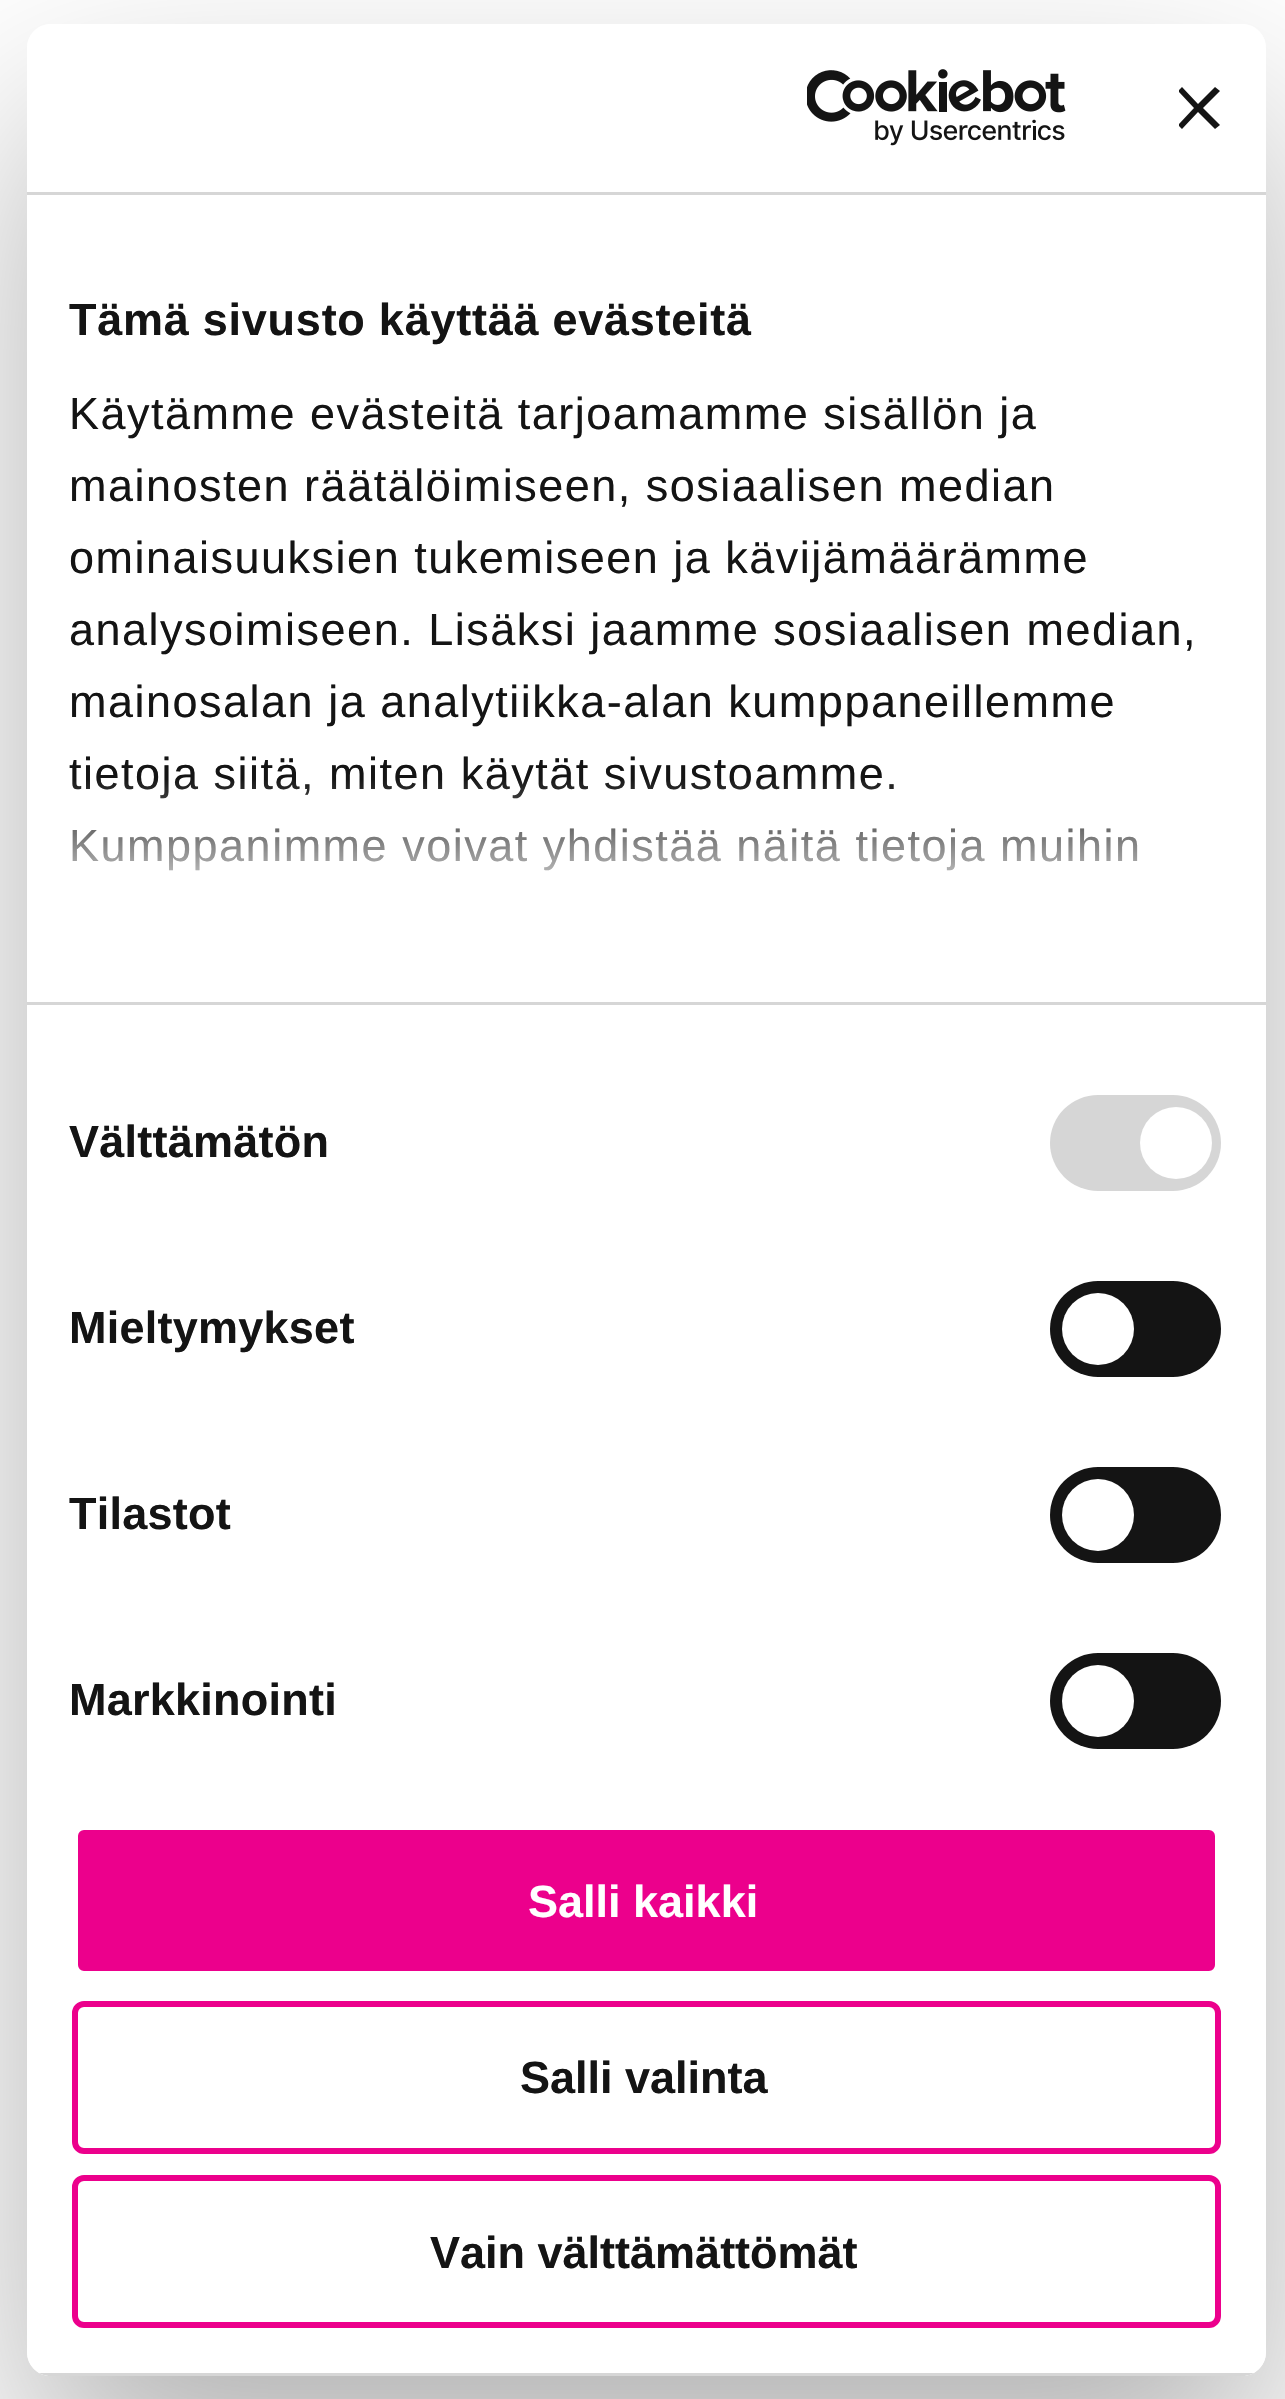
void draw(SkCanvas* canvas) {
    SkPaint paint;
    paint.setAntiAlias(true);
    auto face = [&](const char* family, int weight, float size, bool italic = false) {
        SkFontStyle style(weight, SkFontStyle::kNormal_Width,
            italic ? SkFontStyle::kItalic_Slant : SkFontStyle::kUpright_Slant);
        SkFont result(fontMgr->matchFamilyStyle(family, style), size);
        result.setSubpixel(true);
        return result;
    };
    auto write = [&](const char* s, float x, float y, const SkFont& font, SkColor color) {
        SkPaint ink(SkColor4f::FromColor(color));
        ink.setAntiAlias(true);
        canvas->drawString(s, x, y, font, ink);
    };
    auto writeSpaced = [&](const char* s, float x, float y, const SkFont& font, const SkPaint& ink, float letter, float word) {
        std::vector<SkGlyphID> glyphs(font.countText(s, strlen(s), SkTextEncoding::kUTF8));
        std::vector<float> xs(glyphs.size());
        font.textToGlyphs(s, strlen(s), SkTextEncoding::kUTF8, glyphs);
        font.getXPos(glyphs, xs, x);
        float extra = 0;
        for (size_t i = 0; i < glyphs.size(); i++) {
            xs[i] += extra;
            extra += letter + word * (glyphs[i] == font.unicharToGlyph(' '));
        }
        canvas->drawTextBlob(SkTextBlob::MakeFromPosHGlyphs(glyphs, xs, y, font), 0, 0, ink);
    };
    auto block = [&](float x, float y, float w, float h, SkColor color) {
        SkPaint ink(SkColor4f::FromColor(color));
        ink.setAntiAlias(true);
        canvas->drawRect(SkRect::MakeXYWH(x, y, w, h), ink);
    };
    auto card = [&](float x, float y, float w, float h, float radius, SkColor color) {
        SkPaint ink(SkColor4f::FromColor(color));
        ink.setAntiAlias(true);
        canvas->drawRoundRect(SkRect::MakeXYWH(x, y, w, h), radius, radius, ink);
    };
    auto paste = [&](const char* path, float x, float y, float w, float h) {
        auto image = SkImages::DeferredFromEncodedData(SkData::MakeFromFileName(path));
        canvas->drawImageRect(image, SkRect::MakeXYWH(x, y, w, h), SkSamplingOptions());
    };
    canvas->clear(SK_ColorWHITE);
    canvas->save();
    canvas->clipPath(SkPathBuilder(SkPathFillType::kEvenOdd).moveTo(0, 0).lineTo(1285, 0).lineTo(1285, 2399).lineTo(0, 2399).close().moveTo(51, 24).lineTo(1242, 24).cubicTo(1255.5f, 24, 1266, 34.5f, 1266, 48).lineTo(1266, 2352).cubicTo(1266, 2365.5f, 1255.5f, 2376, 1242, 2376).lineTo(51, 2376).cubicTo(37.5f, 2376, 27, 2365.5f, 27, 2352).lineTo(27, 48).cubicTo(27, 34.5f, 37.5f, 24, 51, 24).close().detach(), true);
    paint.setColor(SkColorSetARGB(77, 0, 0, 0));
    paint.setMaskFilter(SkMaskFilter::MakeBlur(kNormal_SkBlurStyle, 102));
    canvas->drawRoundRect(SkRect::MakeXYWH(27, 120, 1239, 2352), 24, 24, paint);
    paint.setMaskFilter(nullptr);
    canvas->restore();
    card(27, 24, 1239, 2352, 24, SK_ColorWHITE);
    block(27, 192, 1239, 3, SkColorSetRGB(214, 214, 214));
    paste("pic1.png", 807, 69, 259, 77);
    canvas->save();
    canvas->clipRect(SkRect::MakeXYWH(1179, 87, 42, 42));
    paint.setColor(SkColorSetRGB(20, 20, 20));
    canvas->drawPath(SkPathBuilder().moveTo(1220, 91).lineTo(1215, 87).lineTo(1198, 104).lineTo(1182, 87).lineTo(1178, 91).lineTo(1194, 108).lineTo(1178, 125).lineTo(1182, 129).lineTo(1198, 112).lineTo(1215, 129).lineTo(1220, 125).lineTo(1203, 108).close().detach(), paint);
    canvas->restore();
    block(27, 1002, 1239, 3, SkColorSetRGB(214, 214, 214));
    auto kFont1 = face("Liberation Sans", 700, 45);
    writeSpaced("Tämä sivusto käyttää evästeitä", 69, 335, kFont1, paint, 0.75f, 0);
    auto kFont2 = face("Liberation Sans", 400, 45);
    writeSpaced("Käytämme evästeitä tarjoamamme sisällön ja", 69, 429, kFont2, paint, 1.5f, 0);
    writeSpaced("mainosten räätälöimiseen, sosiaalisen median", 69, 501, kFont2, paint, 1.5f, 0);
    writeSpaced("ominaisuuksien tukemiseen ja kävijämäärämme", 69, 573, kFont2, paint, 1.5f, 0);
    writeSpaced("analysoimiseen. Lisäksi jaamme sosiaalisen median,", 69, 645, kFont2, paint, 1.5f, 0);
    writeSpaced("mainosalan ja analytiikka-alan kumppaneillemme", 69, 717, kFont2, paint, 1.5f, 0);
    writeSpaced("tietoja siitä, miten käytät sivustoamme.", 69, 789, kFont2, paint, 1.5f, 0);
    writeSpaced("Kumppanimme voivat yhdistää näitä tietoja muihin", 69, 861, kFont2, paint, 1.5f, 0);
    {
        const SkColor colors[] = {SK_ColorWHITE, SkColorSetARGB(204, 255, 255, 255), SkColorSetARGB(0, 255, 255, 255)};
        const float stops[] = {0, 0.5f, 1};
        const SkPoint ends[] = {{626, 1002}, {626, 777}};
        paint.setShader(SkGradientShader::MakeLinear(ends, colors, stops, 3, SkTileMode::kClamp));
        paint.setAlpha(255);
    }
    canvas->drawRect(SkRect::MakeXYWH(72, 780, 1066, 91), paint);
    paint.setShader(nullptr);
    paint.setColor(SkColorSetRGB(20, 20, 20));
    writeSpaced("Välttämätön", 69, 1157, kFont1, paint, 0.25f, 0);
    card(1050, 1095, 171, 96, 48, SkColorSetRGB(214, 214, 214));
    paint.setColor(SK_ColorWHITE);
    canvas->drawCircle(1176, 1143, 36, paint);
    paint.setColor(SkColorSetRGB(20, 20, 20));
    writeSpaced("Mieltymykset", 69, 1343, kFont1, paint, 0.25f, 0);
    card(1050, 1281, 171, 96, 48, SkColorSetRGB(20, 20, 20));
    paint.setColor(SK_ColorWHITE);
    canvas->drawCircle(1098, 1329, 36, paint);
    paint.setColor(SkColorSetRGB(20, 20, 20));
    writeSpaced("Tilastot", 69, 1529, kFont1, paint, 0.25f, 0);
    card(1050, 1467, 171, 96, 48, SkColorSetRGB(20, 20, 20));
    paint.setColor(SK_ColorWHITE);
    canvas->drawCircle(1098, 1515, 36, paint);
    paint.setColor(SkColorSetRGB(20, 20, 20));
    writeSpaced("Markkinointi", 69, 1715, kFont1, paint, 0.25f, 0);
    card(1050, 1653, 171, 96, 48, SkColorSetRGB(20, 20, 20));
    paint.setColor(SK_ColorWHITE);
    canvas->drawCircle(1098, 1701, 36, paint);
    canvas->save();
    canvas->clipPath(SkPathBuilder().moveTo(51, 24).lineTo(1242, 24).cubicTo(1255.5f, 24, 1266, 34.5f, 1266, 48).lineTo(1266, 2352).cubicTo(1266, 2365.5f, 1255.5f, 2376, 1242, 2376).lineTo(51, 2376).cubicTo(37.5f, 2376, 27, 2365.5f, 27, 2352).lineTo(27, 48).cubicTo(27, 34.5f, 37.5f, 24, 51, 24).close().detach(), true);
    block(39, 2373, 1215, 3, SkColorSetRGB(214, 214, 214));
    canvas->restore();
    paint.setColor(SkColorSetRGB(236, 0, 140));
    canvas->drawRoundRect(SkRect::MakeXYWH(75, 1827, 1143, 147), 9, 9, paint);
    paint.setStyle(SkPaint::kStroke_Style);
    paint.setStrokeWidth(6);
    paint.setColor(SK_ColorWHITE);
    canvas->drawRoundRect(SkRect::MakeXYWH(75, 1827, 1143, 147), 9, 9, paint);
    write("Salli kaikki", 528, 1917, kFont1, SK_ColorWHITE);
    paint.setColor(SkColorSetRGB(236, 0, 140));
    canvas->drawRoundRect(SkRect::MakeXYWH(75, 2004, 1143, 147), 9, 9, paint);
    write("Salli valinta", 520, 2093, kFont1, SkColorSetRGB(20, 20, 20));
    canvas->drawRoundRect(SkRect::MakeXYWH(75, 2178, 1143, 147), 9, 9, paint);
    write("Vain välttämättömät", 430, 2268, kFont1, SkColorSetRGB(20, 20, 20));
}
